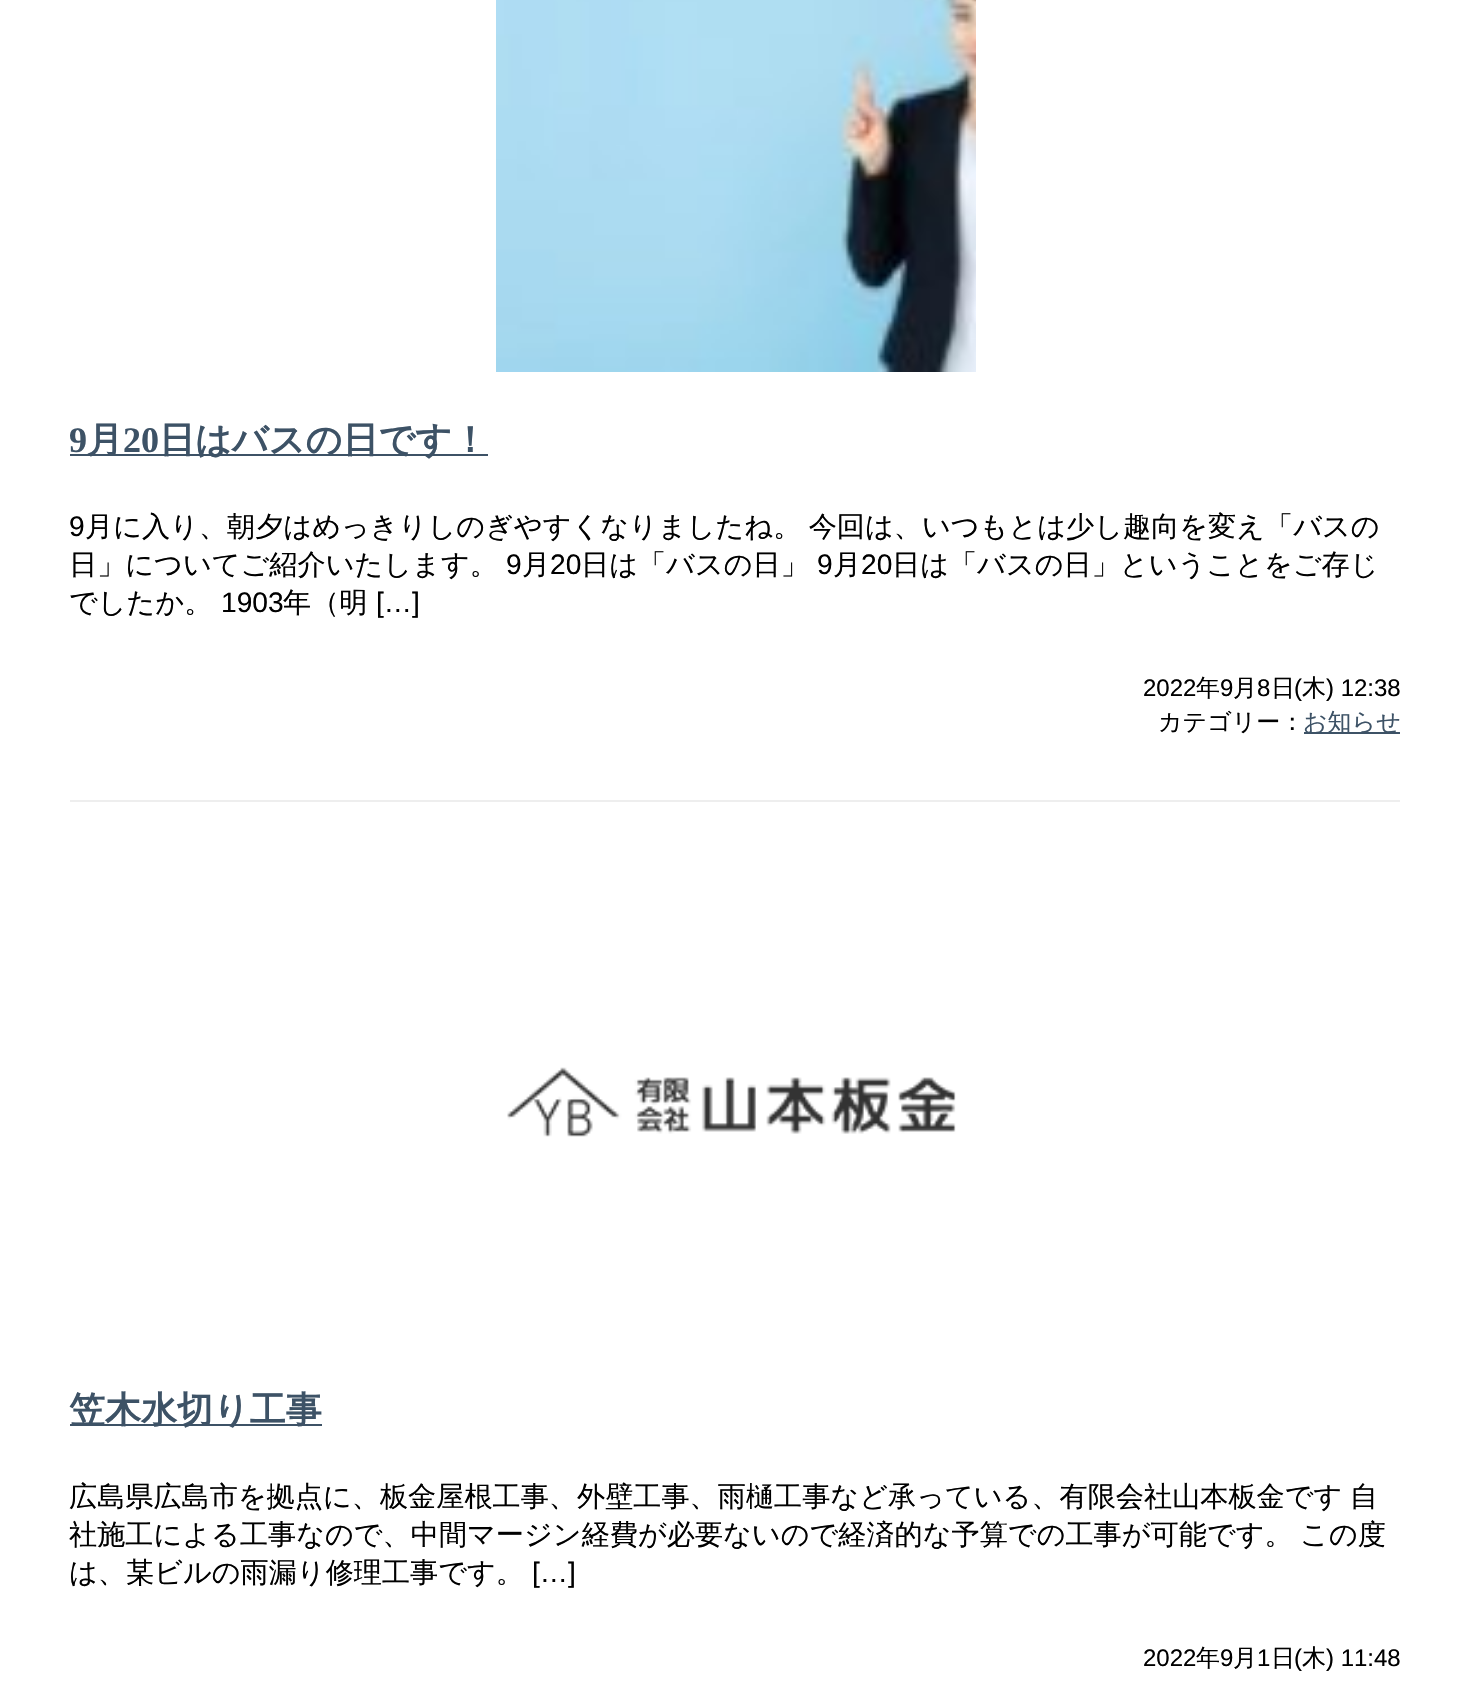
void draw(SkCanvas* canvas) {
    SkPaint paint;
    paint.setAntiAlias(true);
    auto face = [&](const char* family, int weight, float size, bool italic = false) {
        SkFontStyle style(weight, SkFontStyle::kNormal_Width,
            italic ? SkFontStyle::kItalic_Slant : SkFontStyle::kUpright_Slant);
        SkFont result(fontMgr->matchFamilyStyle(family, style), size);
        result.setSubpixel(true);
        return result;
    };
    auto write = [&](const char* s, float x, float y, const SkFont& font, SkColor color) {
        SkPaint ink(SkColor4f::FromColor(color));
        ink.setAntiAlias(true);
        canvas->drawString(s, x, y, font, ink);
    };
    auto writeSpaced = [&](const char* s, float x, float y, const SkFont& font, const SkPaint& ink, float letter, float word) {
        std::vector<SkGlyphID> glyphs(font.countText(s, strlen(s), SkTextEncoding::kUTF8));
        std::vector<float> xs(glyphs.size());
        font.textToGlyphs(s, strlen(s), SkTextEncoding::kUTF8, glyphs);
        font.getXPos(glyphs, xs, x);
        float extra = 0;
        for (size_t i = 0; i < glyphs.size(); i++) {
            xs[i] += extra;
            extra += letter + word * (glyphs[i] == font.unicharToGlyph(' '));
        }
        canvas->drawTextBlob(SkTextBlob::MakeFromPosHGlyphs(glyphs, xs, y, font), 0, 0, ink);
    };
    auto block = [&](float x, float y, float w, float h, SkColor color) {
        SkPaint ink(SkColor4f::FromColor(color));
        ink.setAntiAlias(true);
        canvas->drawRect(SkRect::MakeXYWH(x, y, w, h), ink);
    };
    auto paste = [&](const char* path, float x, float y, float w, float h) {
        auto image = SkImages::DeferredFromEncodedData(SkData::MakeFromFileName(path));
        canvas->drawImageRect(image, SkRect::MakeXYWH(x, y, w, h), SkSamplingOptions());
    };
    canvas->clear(SK_ColorWHITE);
    block(70, 800, 1330, 2, SkColorSetRGB(238, 238, 238));
    paste("pic1.png", 496, 0, 480, 372);
    auto kFont1 = face("Liberation Serif", 700, 36);
    write("9", 69, 452, kFont1, SkColorSetRGB(61, 82, 102));
    block(70, 454, 418, 2, SkColorSetRGB(61, 82, 102));
    auto kFont2 = face("WenQuanYi Zen Hei", 700, 36);
    write("月", 87, 452, kFont2, SkColorSetRGB(61, 82, 102));
    write("20", 123, 452, kFont1, SkColorSetRGB(61, 82, 102));
    write("日はバスの日です！", 159, 452, kFont2, SkColorSetRGB(61, 82, 102));
    auto kFont3 = face("Liberation Sans", 400, 28.15f);
    write("9", 69, 536, kFont3, SK_ColorBLACK);
    auto kFont4 = face("WenQuanYi Zen Hei", 500, 28.15f);
    paint.setColor(SK_ColorBLACK);
    writeSpaced("月に入り、朝夕はめっきりしのぎやすくなりましたね。 今回は、いつもとは少し趣向を変え「バスの", 85, 536, kFont4, paint, 0, -1);
    write("日」についてご紹介いたします。", 69, 574, kFont4, SK_ColorBLACK);
    write("9", 506, 574, kFont3, SK_ColorBLACK);
    write("月", 522, 574, kFont4, SK_ColorBLACK);
    write("20", 550, 574, kFont3, SK_ColorBLACK);
    write("日は「バスの日」", 581, 574, kFont4, SK_ColorBLACK);
    write("9", 817, 574, kFont3, SK_ColorBLACK);
    write("月", 833, 574, kFont4, SK_ColorBLACK);
    write("20", 861, 574, kFont3, SK_ColorBLACK);
    write("日は「バスの日」ということをご存じ", 892, 574, kFont4, SK_ColorBLACK);
    write("でしたか。", 69, 612, kFont4, SK_ColorBLACK);
    write("1903", 221, 612, kFont3, SK_ColorBLACK);
    write("年（明", 283, 612, kFont4, SK_ColorBLACK);
    write("[…]", 376, 612, kFont3, SK_ColorBLACK);
    auto kFont5 = face("Liberation Sans", 400, 24);
    write("2022", 1143, 696, kFont5, SK_ColorBLACK);
    auto kFont6 = face("WenQuanYi Zen Hei", 500, 24);
    write("年", 1196, 696, kFont6, SK_ColorBLACK);
    write("9", 1220, 696, kFont5, SK_ColorBLACK);
    write("月", 1233, 696, kFont6, SK_ColorBLACK);
    write("8", 1257, 696, kFont5, SK_ColorBLACK);
    write("日", 1271, 696, kFont6, SK_ColorBLACK);
    write("(", 1294, 696, kFont5, SK_ColorBLACK);
    write("木", 1302, 696, kFont6, SK_ColorBLACK);
    write(") 12:38", 1326, 696, kFont5, SK_ColorBLACK);
    write("カテゴリー：", 1158, 730, kFont6, SK_ColorBLACK);
    block(1304, 732, 96, 2, SkColorSetRGB(61, 82, 102));
    write("お知らせ", 1303, 730, kFont6, SkColorSetRGB(61, 82, 102));
    paste("pic2.png", 507, 1067, 449, 70);
    block(70, 1424, 252, 2, SkColorSetRGB(61, 82, 102));
    write("笠木水切り工事", 69, 1422, kFont2, SkColorSetRGB(61, 82, 102));
    writeSpaced("広島県広島市を拠点に、板金屋根工事、外壁工事、雨樋工事など承っている、有限会社山本板金です 自", 69, 1506, kFont4, paint, 0, -1);
    writeSpaced("社施工による工事なので、中間マージン経費が必要ないので経済的な予算での工事が可能です。 この度", 69, 1544, kFont4, paint, 0, -1);
    write("は、某ビルの雨漏り修理工事です。", 69, 1582, kFont4, SK_ColorBLACK);
    write("[…]", 532, 1582, kFont3, SK_ColorBLACK);
    write("2022", 1143, 1666, kFont5, SK_ColorBLACK);
    write("年", 1196, 1666, kFont6, SK_ColorBLACK);
    write("9", 1220, 1666, kFont5, SK_ColorBLACK);
    write("月", 1233, 1666, kFont6, SK_ColorBLACK);
    write("1", 1257, 1666, kFont5, SK_ColorBLACK);
    write("日", 1271, 1666, kFont6, SK_ColorBLACK);
    write("(", 1294, 1666, kFont5, SK_ColorBLACK);
    write("木", 1302, 1666, kFont6, SK_ColorBLACK);
    write(") 11:48", 1326, 1666, kFont5, SK_ColorBLACK);
}
